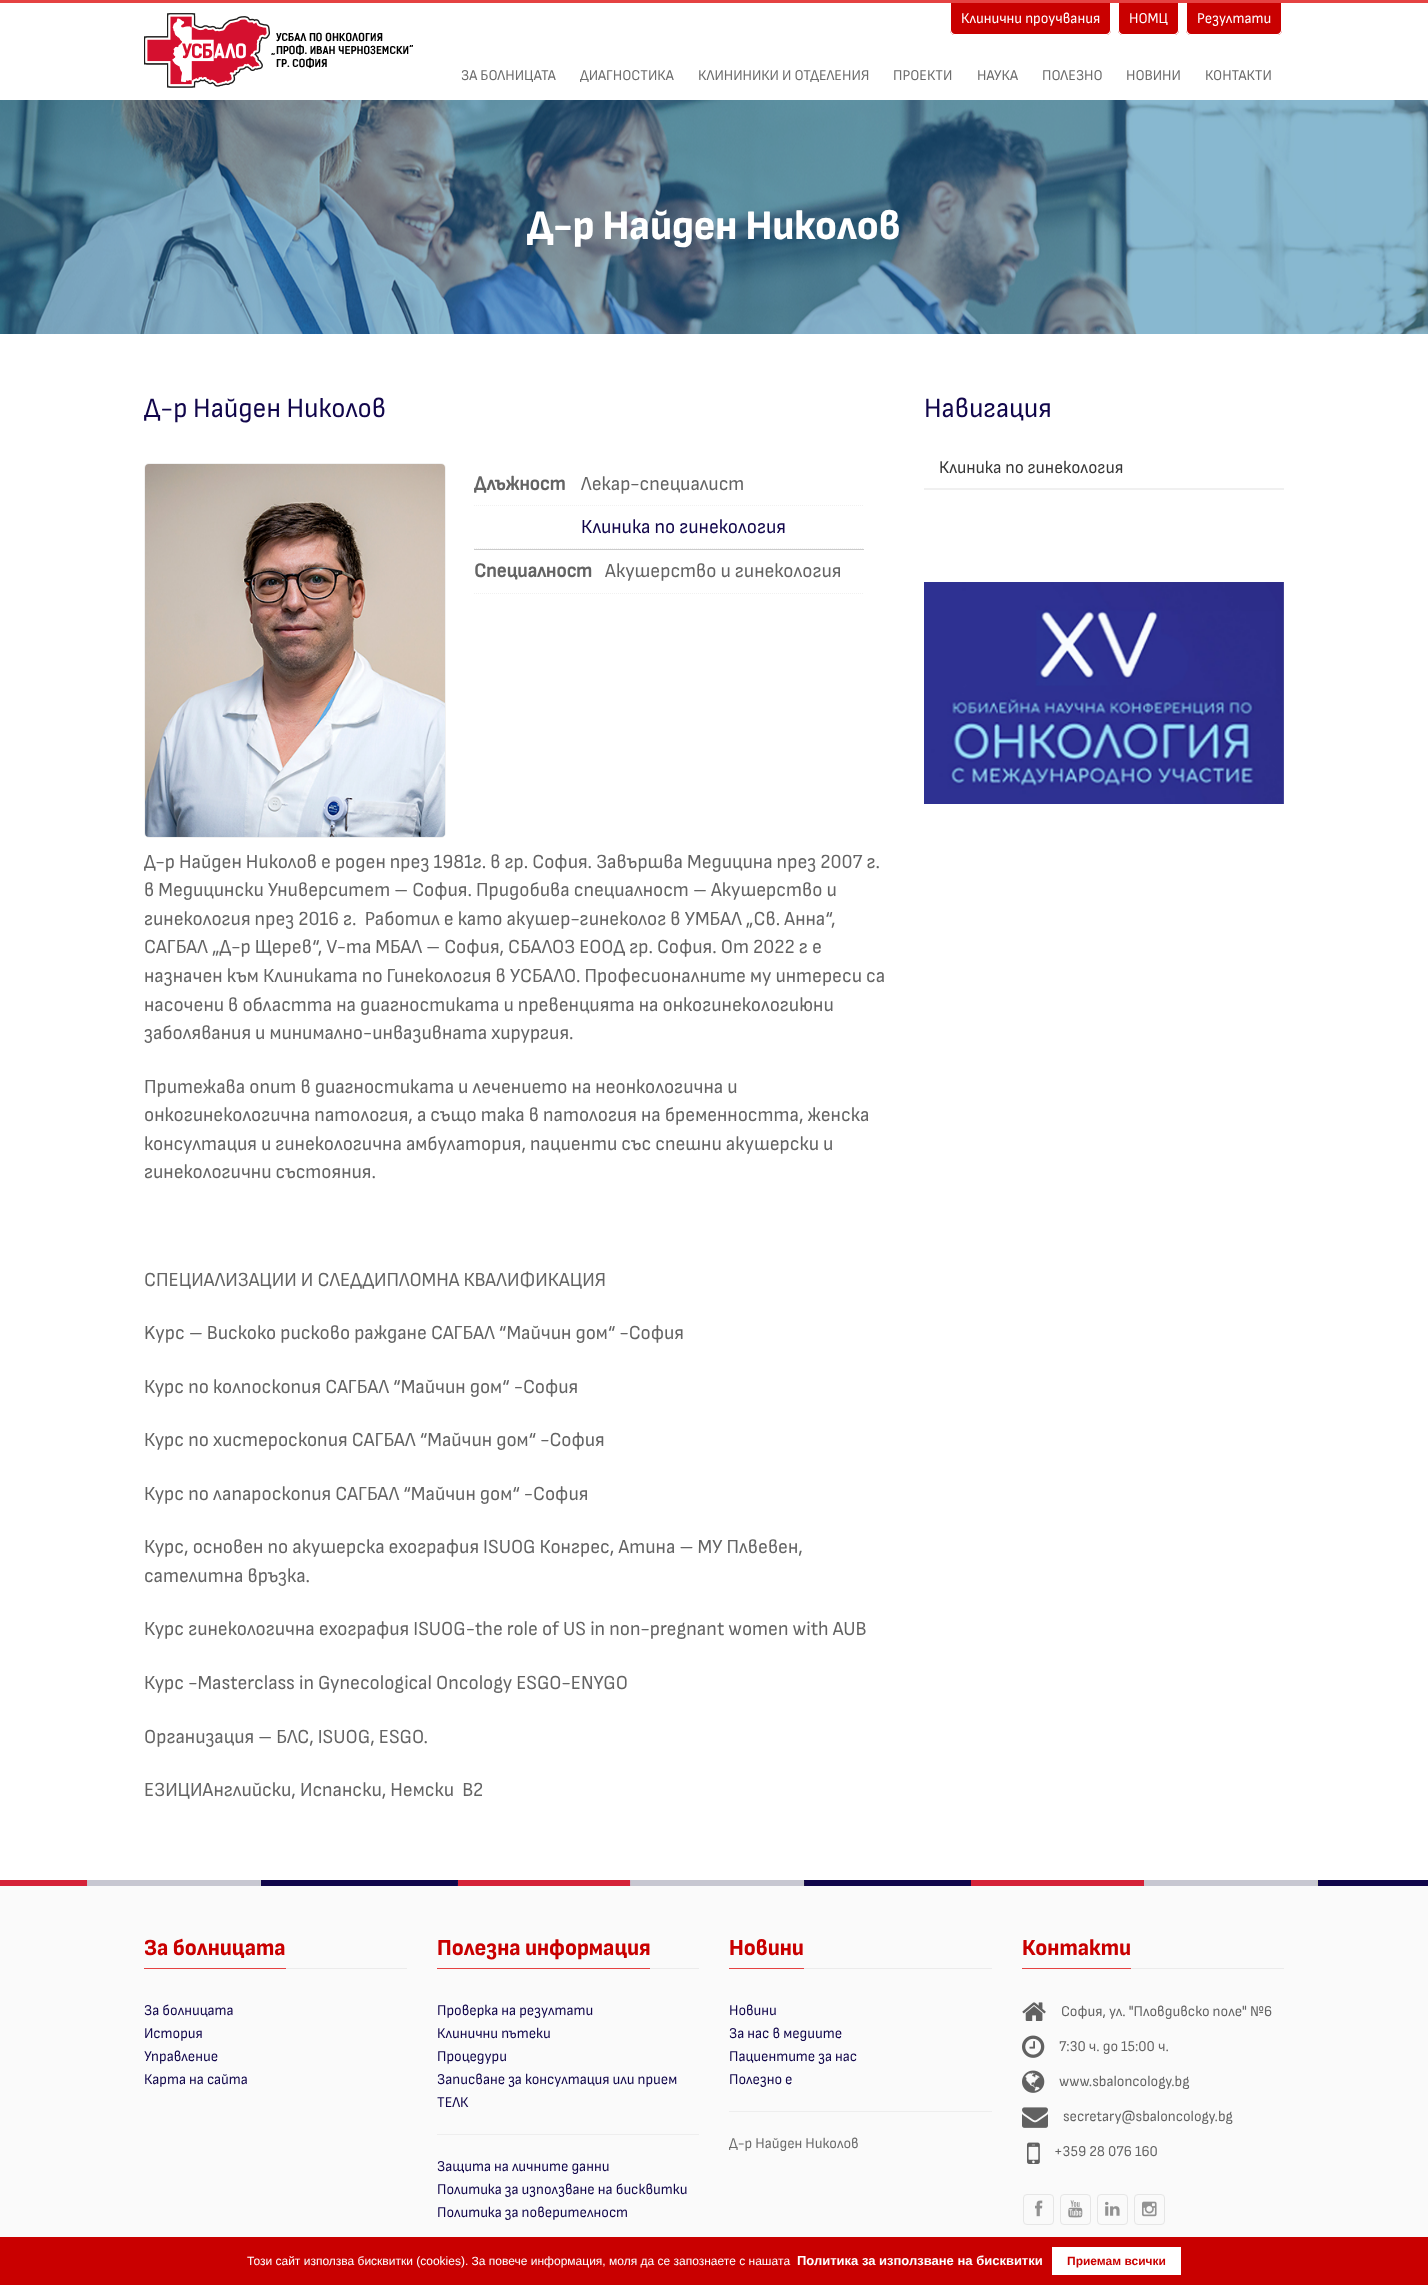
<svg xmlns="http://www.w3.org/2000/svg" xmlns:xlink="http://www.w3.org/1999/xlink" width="1428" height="2285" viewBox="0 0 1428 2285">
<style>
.cls-1{font:15px Sofia Sans Semi Condensed;fill:#ffffff}
.cls-2{font:15px Sofia Sans Semi Condensed;fill:#6c6c6c}
.cls-3{font:800 42px Sofia Sans Semi Condensed;fill:#ffffff}
.cls-4{font:28px Sofia Sans Semi Condensed;fill:#11064b}
.cls-5{font:bold 20px Sofia Sans Semi Condensed;fill:#646464}
.cls-6{font:20px Sofia Sans Semi Condensed;fill:#646464}
.cls-7{font:20px Sofia Sans Semi Condensed;fill:#11064b}
.cls-8{font:18px Sofia Sans Semi Condensed;fill:#373737}
.cls-9{font:800 23px Sofia Sans Semi Condensed;fill:#c90000}
.cls-10{font:15px Sofia Sans Semi Condensed;fill:#11064b}
.cls-11{font:15px Sofia Sans Semi Condensed;fill:#646464}
.cls-12{font:12px Liberation Sans;fill:#ffffff}
.cls-13{font:bold 13px Liberation Sans;fill:#ffffff}
.cls-14{font:bold 12px Liberation Sans;fill:#c90000}
</style>
<rect width="100%" height="100%" fill="#ffffff"/>
<path fill="#c90000" d="M950 3H1111V30C1111 33 1109 35 1106 35H955C952 35 950 33 950 30Z"/>
<path fill="#ffffff" fill-rule="evenodd" d="M950 3H1111V30C1111 33 1109 35 1106 35H955C952 35 950 33 950 30ZM951 3H1110V30C1110 32 1108 34 1106 34H955C953 34 951 32 951 30Z"/>
<path fill="#c90000" d="M1118 3H1179V30C1179 33 1177 35 1174 35H1123C1120 35 1118 33 1118 30Z"/>
<path fill="#ffffff" fill-rule="evenodd" d="M1118 3H1179V30C1179 33 1177 35 1174 35H1123C1120 35 1118 33 1118 30ZM1119 3H1178V30C1178 32 1176 34 1174 34H1123C1121 34 1119 32 1119 30Z"/>
<path fill="#c90000" d="M1186 3H1282V30C1282 33 1280 35 1277 35H1191C1188 35 1186 33 1186 30Z"/>
<path fill="#ffffff" fill-rule="evenodd" d="M1186 3H1282V30C1282 33 1280 35 1277 35H1191C1188 35 1186 33 1186 30ZM1187 3H1281V30C1281 32 1279 34 1277 34H1191C1189 34 1187 32 1187 30Z"/>
<rect fill="#e54242" x="0" y="0" width="1428" height="3"/>
<image xlink:href="image0.png" x="144" y="13" width="269" height="75"/>
<image xlink:href="image1.png" x="0" y="100" width="1428" height="234"/>
<rect fill="none" stroke="#f2f2f2" x="144.5" y="463.5" width="301" height="374" rx="4.5"/>
<image xlink:href="image2.png" x="145" y="464" width="300" height="373"/>
<path fill="none" stroke="#f1f1f1" stroke-dasharray="1 1" d="M474 505.5H864"/>
<path fill="none" stroke="#f1f1f1" stroke-dasharray="1 1" d="M474 548.5H864"/>
<rect fill="#cccccc" x="474" y="549" width="390" height="1"/>
<path fill="none" stroke="#f1f1f1" stroke-dasharray="1 1" d="M474 593.5H864"/>
<rect fill="#f0f0f0" x="924" y="488" width="360" height="2"/>
<image xlink:href="image3.png" x="924" y="582" width="360" height="222"/>
<image xlink:href="image4.png" x="0" y="1880" width="1428" height="3"/>
<image xlink:href="image4.png" x="0" y="1883" width="1428" height="3"/>
<rect fill="#fafafa" x="0" y="1886" width="1428" height="351"/>
<rect fill="#ebebeb" x="286" y="1968" width="121" height="1"/>
<rect fill="#e54242" x="144" y="1968" width="142" height="1"/>
<rect fill="#ebebeb" x="650" y="1968" width="49" height="1"/>
<rect fill="#e54242" x="437" y="1968" width="213" height="1"/>
<rect fill="#eeeeee" x="437" y="2134" width="262" height="1"/>
<rect fill="#ebebeb" x="804" y="1968" width="188" height="1"/>
<rect fill="#e54242" x="729" y="1968" width="75" height="1"/>
<rect fill="#eeeeee" x="729" y="2111" width="263" height="1"/>
<rect fill="#ebebeb" x="1131" y="1968" width="153" height="1"/>
<rect fill="#e54242" x="1022" y="1968" width="109" height="1"/>
<image xlink:href="image5.png" x="1022" y="2002" width="24" height="19"/>
<image xlink:href="image6.png" x="1022" y="2035" width="23" height="23"/>
<image xlink:href="image7.png" x="1022" y="2070" width="23" height="23"/>
<image xlink:href="image8.png" x="1022" y="2107" width="26" height="21"/>
<image xlink:href="image9.png" x="1027" y="2142" width="13" height="22"/>
<rect fill="none" stroke="#e6e6e6" x="1023.5" y="2194.5" width="30" height="30" rx="3.5"/>
<image xlink:href="image10.png" x="1035" y="2200" width="8" height="17"/>
<rect fill="none" stroke="#e6e6e6" x="1060.5" y="2194.5" width="30" height="30" rx="3.5"/>
<image xlink:href="image11.png" x="1068" y="2200" width="15" height="18"/>
<rect fill="none" stroke="#e6e6e6" x="1097.5" y="2194.5" width="30" height="30" rx="3.5"/>
<image xlink:href="image12.png" x="1105" y="2201" width="15" height="15"/>
<rect fill="none" stroke="#e6e6e6" x="1134.5" y="2194.5" width="30" height="30" rx="3.5"/>
<image xlink:href="image13.png" x="1142" y="2201" width="15" height="16"/>
<rect fill="#c90000" x="0" y="2237" width="1428" height="48"/>
<rect fill="#ffffff" x="1052" y="2247" width="129" height="28"/>
<text class="cls-1" x="961" y="23">Клинични проучвания</text>
<text class="cls-1" x="1129" y="23">НОМЦ</text>
<text class="cls-1" x="1197" y="23">Резултати</text>
<text class="cls-2" x="461" y="80">ЗА БОЛНИЦАТА</text>
<text class="cls-2" x="580" y="80">ДИАГНОСТИКА</text>
<text class="cls-2" x="698" y="80">КЛИНИНИКИ И ОТДЕЛЕНИЯ</text>
<text class="cls-2" x="893" y="80">ПРОЕКТИ</text>
<text class="cls-2" x="977" y="80">НАУКА</text>
<text class="cls-2" x="1042" y="80">ПОЛЕЗНО</text>
<text class="cls-2" x="1126" y="80">НОВИНИ</text>
<text class="cls-2" x="1205" y="80">КОНТАКТИ</text>
<text class="cls-3" x="527" y="239">Д-р Найден Николов</text>
<text class="cls-4" x="144" y="417">Д-р Найден Николов</text>
<text class="cls-5" x="474" y="490">Длъжност</text>
<text class="cls-6" x="581" y="490">Лекар-специалист</text>
<text class="cls-7" x="581" y="533">Клиника по гинекология</text>
<text class="cls-5" x="474" y="577">Специалност</text>
<text class="cls-6" x="605" y="577">Акушерство и гинекология</text>
<text class="cls-6" xml:space="preserve"><tspan x="144" y="868">Д-р Найден Николов е роден през 1981г. в гр. София. Завършва Медицина през 2007 г.</tspan><tspan x="144" y="896">в Медицински Университет – София. Придобива специалност – Акушерство и</tspan><tspan x="144" y="925">гинекология през 2016 г.  Работил е като акушер-гинеколог в УМБАЛ „Св. Анна“,</tspan><tspan x="144" y="953">САГБАЛ „Д-р Щерев“, V-та МБАЛ – София, СБАЛОЗ ЕООД гр. София. От 2022 г е</tspan><tspan x="144" y="982">назначен към Клиниката по Гинекология в УСБАЛО. Професионалните му интереси са</tspan><tspan x="144" y="1011">насочени в областта на диагностиката и превенцията на онкогинекологиюни</tspan><tspan x="144" y="1039">заболявания и минимално-инвазивната хирургия.</tspan></text>
<text class="cls-6"><tspan x="144" y="1093">Притежава опит в диагностиката и лечението на неонкологична и</tspan><tspan x="144" y="1121">онкогинекологична патология, а също така в патология на бременността, женска</tspan><tspan x="144" y="1150">консултация и гинекологична амбулатория, пациенти със спешни акушерски и</tspan><tspan x="144" y="1178">гинекологични състояния.</tspan></text>
<text class="cls-6" x="144" y="1286">СПЕЦИАЛИЗАЦИИ И СЛЕДДИПЛОМНА КВАЛИФИКАЦИЯ</text>
<text class="cls-6" x="144" y="1339">Kурс – Вискоко рисково раждане САГБАЛ “Майчин дом“ -София</text>
<text class="cls-6" x="144" y="1393">Курс по колпоскопия САГБАЛ “Майчин дом“ -София</text>
<text class="cls-6" x="144" y="1446">Курс по хистероскопия САГБАЛ “Майчин дом“ -София</text>
<text class="cls-6" x="144" y="1500">Курс по лапароскопия САГБАЛ “Майчин дом“ -София</text>
<text class="cls-6"><tspan x="144" y="1553">Курс, основен по акушерска ехография ISUOG Конгрес, Атина – MУ Плвевен,</tspan><tspan x="144" y="1582">сателитна връзка.</tspan></text>
<text class="cls-6" x="144" y="1635">Курс гинекологична ехография ISUOG-the role of US in non-pregnant women with AUB</text>
<text class="cls-6" x="144" y="1689">Курс -Masterclass in Gynecological Oncology ESGO-ENYGO</text>
<text class="cls-6" x="144" y="1743">Организация – БЛС, ISUOG, ESGO.</text>
<text class="cls-6" xml:space="preserve" x="144" y="1796">ЕЗИЦИАнглийски, Испански, Немски  B2</text>
<text class="cls-4" x="924" y="417">Навигация</text>
<text class="cls-8" x="939" y="473">Клиника по гинекология</text>
<text class="cls-9" x="144" y="1955">За болницата</text>
<text class="cls-10"><tspan x="144" y="2015">За болницата</tspan><tspan x="144" y="2038">История</tspan><tspan x="144" y="2061">Управление</tspan><tspan x="144" y="2084">Карта на сайта</tspan></text>
<text class="cls-9" x="437" y="1955">Полезна информация</text>
<text class="cls-10"><tspan x="437" y="2015">Проверка на резултати</tspan><tspan x="437" y="2038">Клинични пътеки</tspan><tspan x="437" y="2061">Процедури</tspan><tspan x="437" y="2084">Записване за консултация или прием</tspan><tspan x="437" y="2107">ТЕЛК</tspan></text>
<text class="cls-10"><tspan x="437" y="2171">Защита на личните данни</tspan><tspan x="437" y="2194">Политика за използване на бисквитки</tspan><tspan x="437" y="2217">Политика за поверителност</tspan></text>
<text class="cls-9" x="729" y="1955">Новини</text>
<text class="cls-10"><tspan x="729" y="2015">Новини</tspan><tspan x="729" y="2038">За нас в медиите</tspan><tspan x="729" y="2061">Пациентите за нас</tspan><tspan x="729" y="2084">Полезно е</tspan></text>
<text class="cls-2" x="729" y="2148">Д-р Найден Николов</text>
<text class="cls-9" x="1022" y="1955">Контакти</text>
<text class="cls-11" x="1061" y="2016">София, ул. "Пловдивско поле" №6</text>
<text class="cls-11" x="1059" y="2051">7:30 ч. до 15:00 ч.</text>
<text class="cls-11" x="1059" y="2086">www.sbaloncology.bg</text>
<text class="cls-11" x="1063" y="2121">secretary@sbaloncology.bg</text>
<text class="cls-11" x="1054" y="2156">+359 28 076 160</text>
<text class="cls-12" x="247" y="2265">Този сайт използва бисквитки (cookies). За повече информация, моля да се запознаете с нашaтa</text>
<text class="cls-13" x="797" y="2265">Политика за използване на бисквитки</text>
<text class="cls-14" x="1067" y="2265">Приемам всички</text>
</svg>
